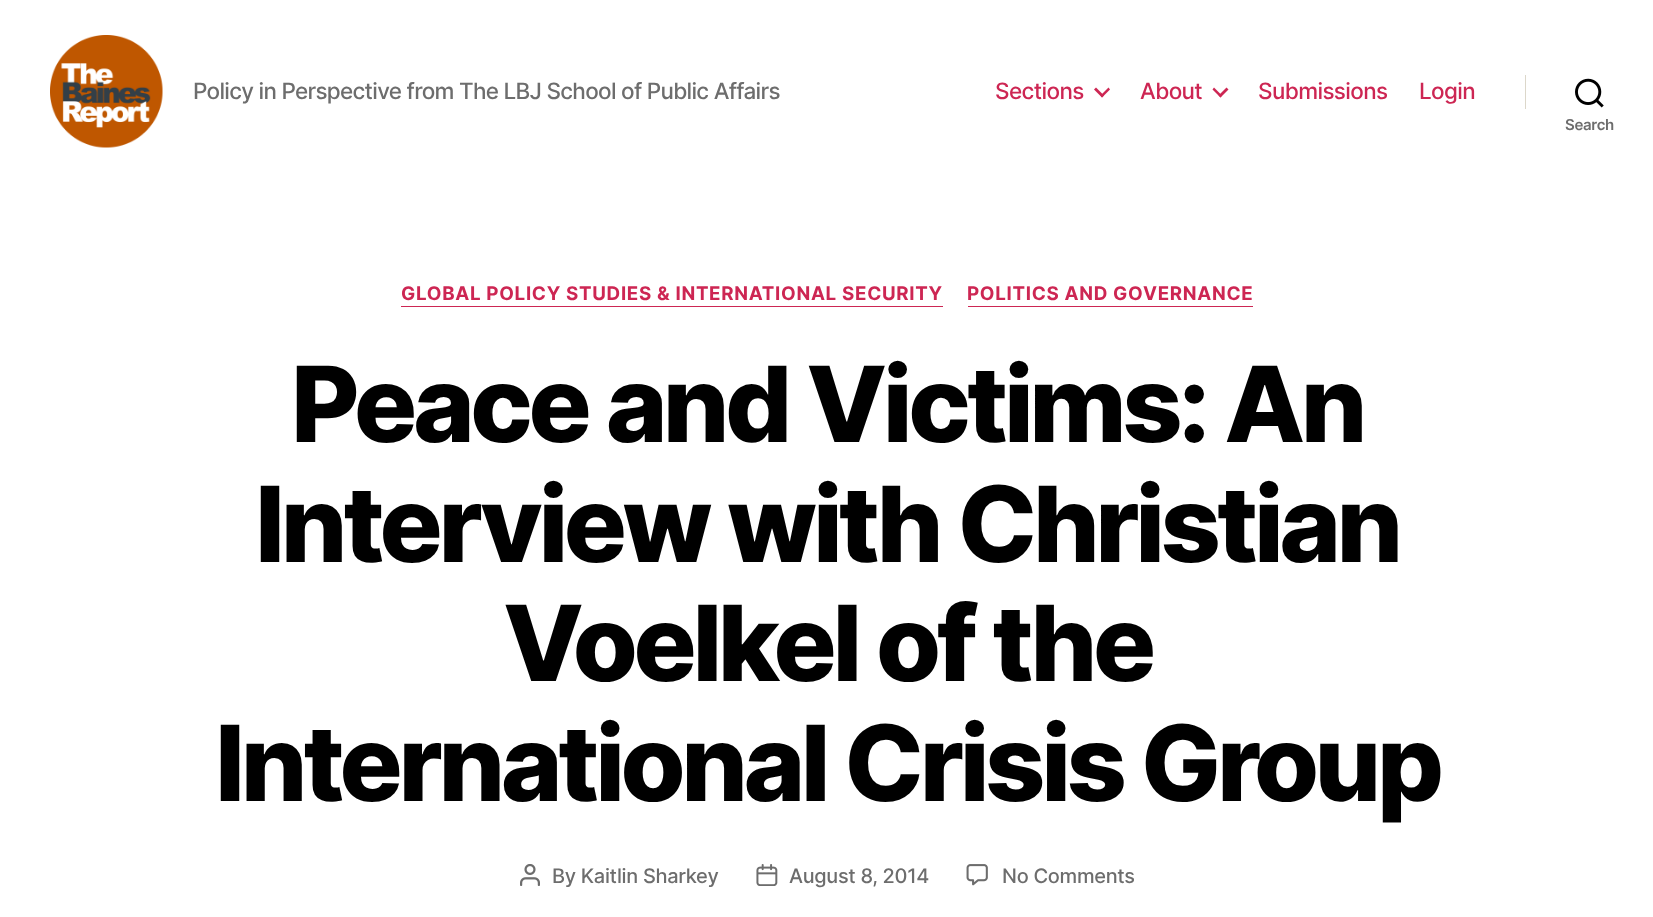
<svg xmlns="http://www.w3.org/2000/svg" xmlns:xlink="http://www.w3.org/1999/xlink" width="1653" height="917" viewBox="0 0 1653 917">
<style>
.cls-1{font:500 22.5px Inter;letter-spacing:-0.7px;fill:#6d6d6d}
.cls-2{font:500 22.5px Inter;letter-spacing:-0.6px;fill:#cd2653}
.cls-3{font:600 15px Inter;letter-spacing:-0.3px;fill:#6d6d6d}
.cls-4{font:bold 18.75px Inter;letter-spacing:0.7px;fill:#cd2653}
.cls-5{font:800 105px Inter;letter-spacing:-4.35px;fill:#000000}
.cls-6{font:500 20px Inter;letter-spacing:-0.3px;fill:#6d6d6d}
</style>
<rect width="100%" height="100%" fill="#ffffff"/>
<image xlink:href="image0.png" x="50" y="35" width="113" height="113"/>
<path fill="#cd2653" d="M1094 89.5L1096 87.5L1104 95.5L1102 97.5Z"/>
<path fill="#cd2653" d="M1100.5 95.5L1108.5 87.5L1110 89.5L1102 97.5Z"/>
<path fill="#cd2653" d="M1212.5 89.5L1214 87.5L1222 95.5L1220.5 97.5Z"/>
<path fill="#cd2653" d="M1218.5 95.5L1226.5 87.5L1228.5 89.5L1220.5 97.5Z"/>
<rect fill="#dcd7ca" x="1525" y="75" width="1" height="34"/>
<image xlink:href="image1.png" x="1575" y="78" width="29" height="30"/>
<rect fill="#cd2653" x="401" y="306" width="542" height="1"/>
<rect fill="#cd2653" x="968" y="306" width="285" height="1"/>
<image xlink:href="image2.png" x="520" y="864" width="20" height="22"/>
<image xlink:href="image3.png" x="756" y="864" width="22" height="22"/>
<image xlink:href="image4.png" x="966" y="864" width="22" height="22"/>
<text class="cls-1" x="193" y="99">Policy in Perspective from The LBJ School of Public Affairs</text>
<text class="cls-2" x="995" y="99">Sections</text>
<text class="cls-2" x="1140" y="99">About</text>
<text class="cls-2" x="1258" y="99">Submissions</text>
<text class="cls-2" x="1419" y="99">Login</text>
<text class="cls-3" x="1565" y="130">Search</text>
<text class="cls-4" x="401" y="300">GLOBAL POLICY STUDIES &amp; INTERNATIONAL SECURITY</text>
<text class="cls-4" x="967" y="300">POLITICS AND GOVERNANCE</text>
<text class="cls-5" x="291" y="442">Peace and Victims: An</text>
<text class="cls-5" x="255" y="562">Interview with Christian</text>
<text class="cls-5" x="503" y="681">Voelkel of the</text>
<text class="cls-5" x="215" y="801">International Crisis Group</text>
<text class="cls-6" x="552" y="883">By Kaitlin Sharkey</text>
<text class="cls-6" x="789" y="883">August 8, 2014</text>
<text class="cls-6" x="1002" y="883">No Comments</text>
</svg>
